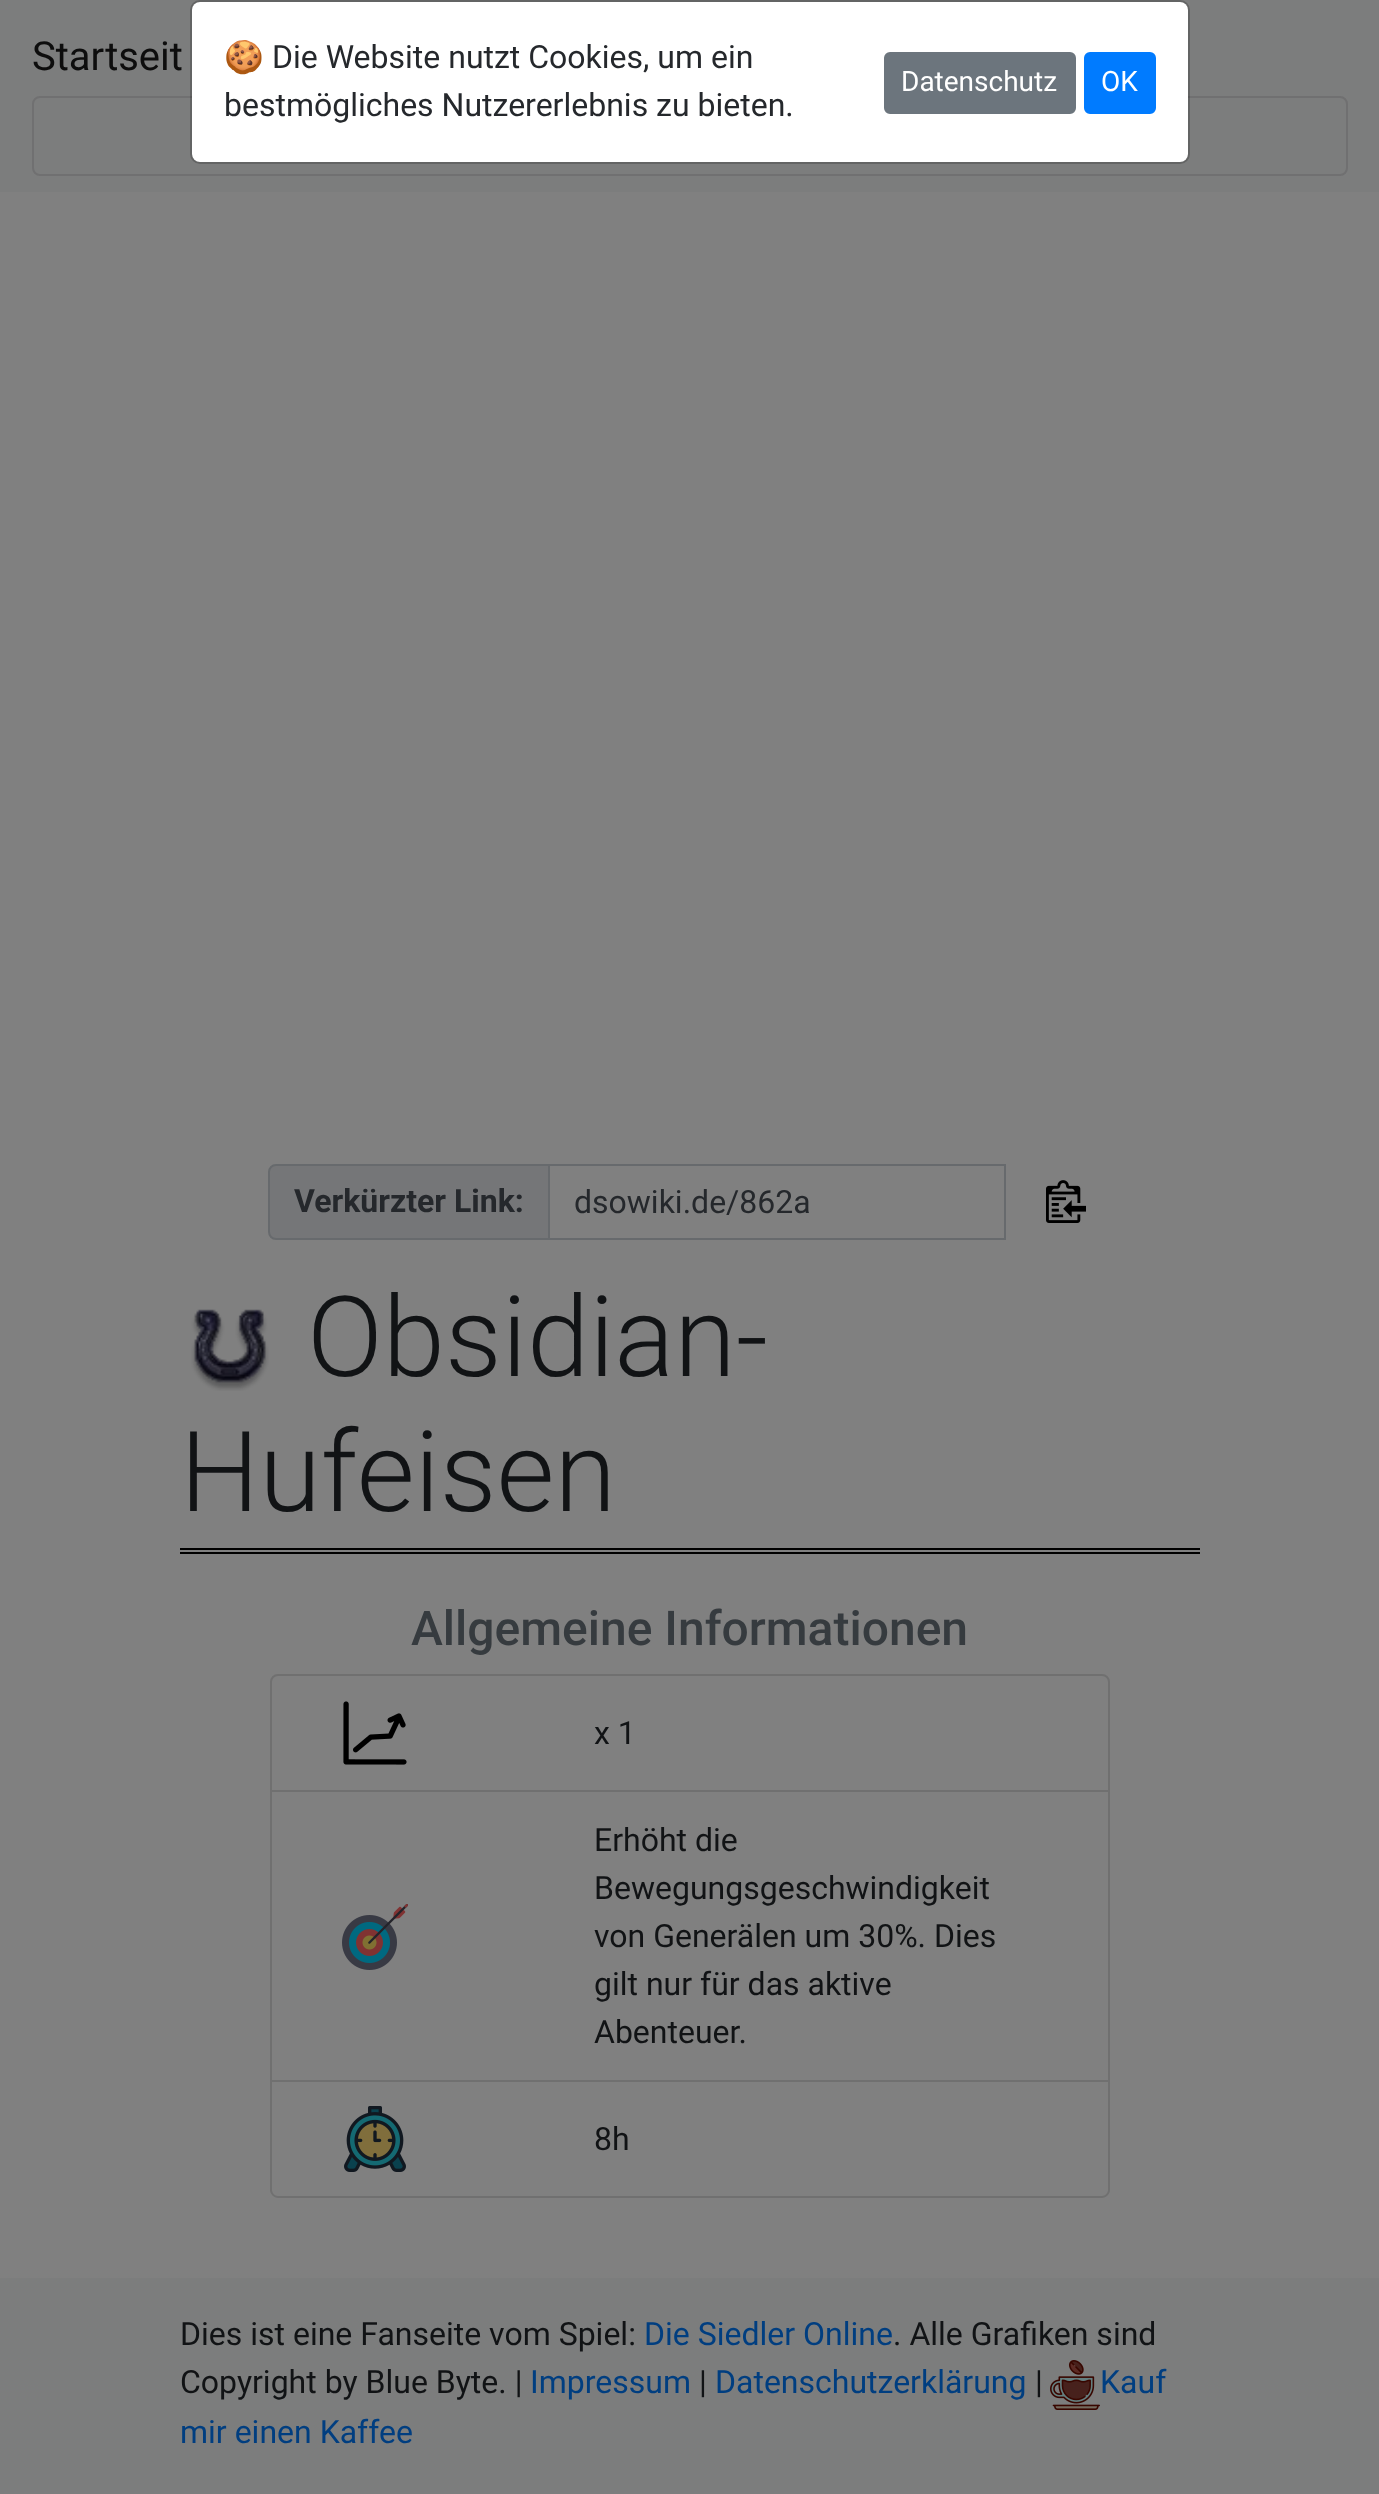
<svg xmlns="http://www.w3.org/2000/svg" xmlns:xlink="http://www.w3.org/1999/xlink" width="1379" height="2494" viewBox="0 0 1379 2494">
<style>
.cls-1{font:40px Roboto;fill:#0d0d0d}
.cls-2{font:32px Noto Color Emoji;fill:#25282c}
.cls-3{font:32px Roboto;fill:#25282c}
.cls-4{font:28px Roboto;fill:#ffffff}
.cls-5{font:bold 32px Roboto;fill:#25282c}
.cls-6{font:300 112px Roboto;fill:#111315}
.cls-7{font:500 48px Roboto;fill:#363b3f}
.cls-8{font:32px Roboto;fill:#111315}
.cls-9{font:32px Roboto;fill:#003e80}
</style>
<rect width="100%" height="100%" fill="#808080"/>
<rect fill="#7c7d7d" x="0" y="0" width="1379" height="192"/>
<rect fill="none" stroke="#707071" stroke-width="2" x="33" y="97" width="1314" height="78" rx="7"/>
<rect fill="#ffffff" x="192" y="2" width="996" height="160" rx="8"/>
<rect fill="none" stroke="#000000" stroke-opacity="0.2" stroke-width="2" x="191" y="1" width="998" height="162" rx="9"/>
<rect fill="#6c757d" stroke="#6c757d" stroke-width="2" x="885" y="53" width="190" height="60" rx="5"/>
<rect fill="#007bff" stroke="#007bff" stroke-width="2" x="1085" y="53" width="70" height="60" rx="5"/>
<path fill="#757678" stroke="#676a6d" stroke-width="2" d="M276 1165H549V1239H276C272 1239 269 1236 269 1232V1172C269 1168 272 1165 276 1165Z"/>
<rect fill="none" stroke="#676a6d" stroke-width="2" x="549" y="1165" width="456" height="74"/>
<image xlink:href="image0.png" x="1046" y="1180" width="40" height="43"/>
<rect fill="#000000" x="180" y="1548" width="1020" height="2"/>
<rect fill="#000000" x="180" y="1552" width="1020" height="2"/>
<image xlink:href="image1.png" x="191" y="1309" width="78" height="82"/>
<path fill="none" stroke="#707070" stroke-width="2" d="M278 1675H1102C1106 1675 1109 1678 1109 1682V1791H271V1682C271 1678 274 1675 278 1675Z"/>
<image xlink:href="image2.png" x="343" y="1701" width="64" height="64"/>
<path fill="#707070" d="M1110 1792V2082L1108 2080V1792Z"/>
<path fill="#000000" fill-opacity="0.12" d="M1110 2082H270L272 2080H1108Z"/>
<path fill="#000000" fill-opacity="0.12" d="M270 2082V1792H272V2080Z"/>
<image xlink:href="image3.png" x="342" y="1904" width="66" height="66"/>
<path fill="#707070" fill-rule="evenodd" d="M270 2082H1110V2190C1110 2194 1106 2198 1102 2198H278C274 2198 270 2194 270 2190ZM272 2082H1108V2190C1108 2193 1105 2196 1102 2196H278C275 2196 272 2193 272 2190Z"/>
<image xlink:href="image4.png" x="344" y="2106" width="62" height="66"/>
<rect fill="#7c7d7d" x="0" y="2278" width="1379" height="216"/>
<image xlink:href="image5.png" x="1050" y="2360" width="50" height="50"/>
<text class="cls-1" x="32" y="70">Startseit</text>
<text class="cls-2" x="224" y="68">🍪</text>
<text class="cls-3" x="272" y="68">Die Website nutzt Cookies, um ein</text>
<text class="cls-3" x="224" y="116">bestmögliches Nutzererlebnis zu bieten.</text>
<text class="cls-4" x="901" y="91">Datenschutz</text>
<text class="cls-4" x="1101" y="91">OK</text>
<text class="cls-5" x="294" y="1212">Verkürzter Link:</text>
<text class="cls-3" x="574" y="1213">dsowiki.de/862a</text>
<text class="cls-6" x="307" y="1376">Obsidian-</text>
<text class="cls-6" x="180" y="1511">Hufeisen</text>
<text class="cls-7" x="411" y="1645">Allgemeine Informationen</text>
<text class="cls-8" x="594" y="1744">x 1</text>
<text class="cls-8"><tspan x="594" y="1851">Erhöht die</tspan><tspan x="594" y="1899">Bewegungsgeschwindigkeit</tspan><tspan x="594" y="1947">von Generälen um 30%. Dies</tspan><tspan x="594" y="1995">gilt nur für das aktive</tspan><tspan x="594" y="2043">Abenteuer.</tspan></text>
<text class="cls-8" x="594" y="2150">8h</text>
<text class="cls-8" x="180" y="2345">Dies ist eine Fanseite vom Spiel:</text>
<text class="cls-9" x="644" y="2345">Die Siedler Online</text>
<text class="cls-8" x="893" y="2345">. Alle Grafiken sind</text>
<text class="cls-8" x="180" y="2393">Copyright by Blue Byte. |</text>
<text class="cls-9" x="530" y="2393">Impressum</text>
<text class="cls-8" x="699" y="2393">|</text>
<text class="cls-9" x="715" y="2393">Datenschutzerklärung</text>
<text class="cls-8" x="1035" y="2393">|</text>
<text class="cls-9" x="1100" y="2393">Kauf</text>
<text class="cls-9" x="180" y="2443">mir einen Kaffee</text>
</svg>
